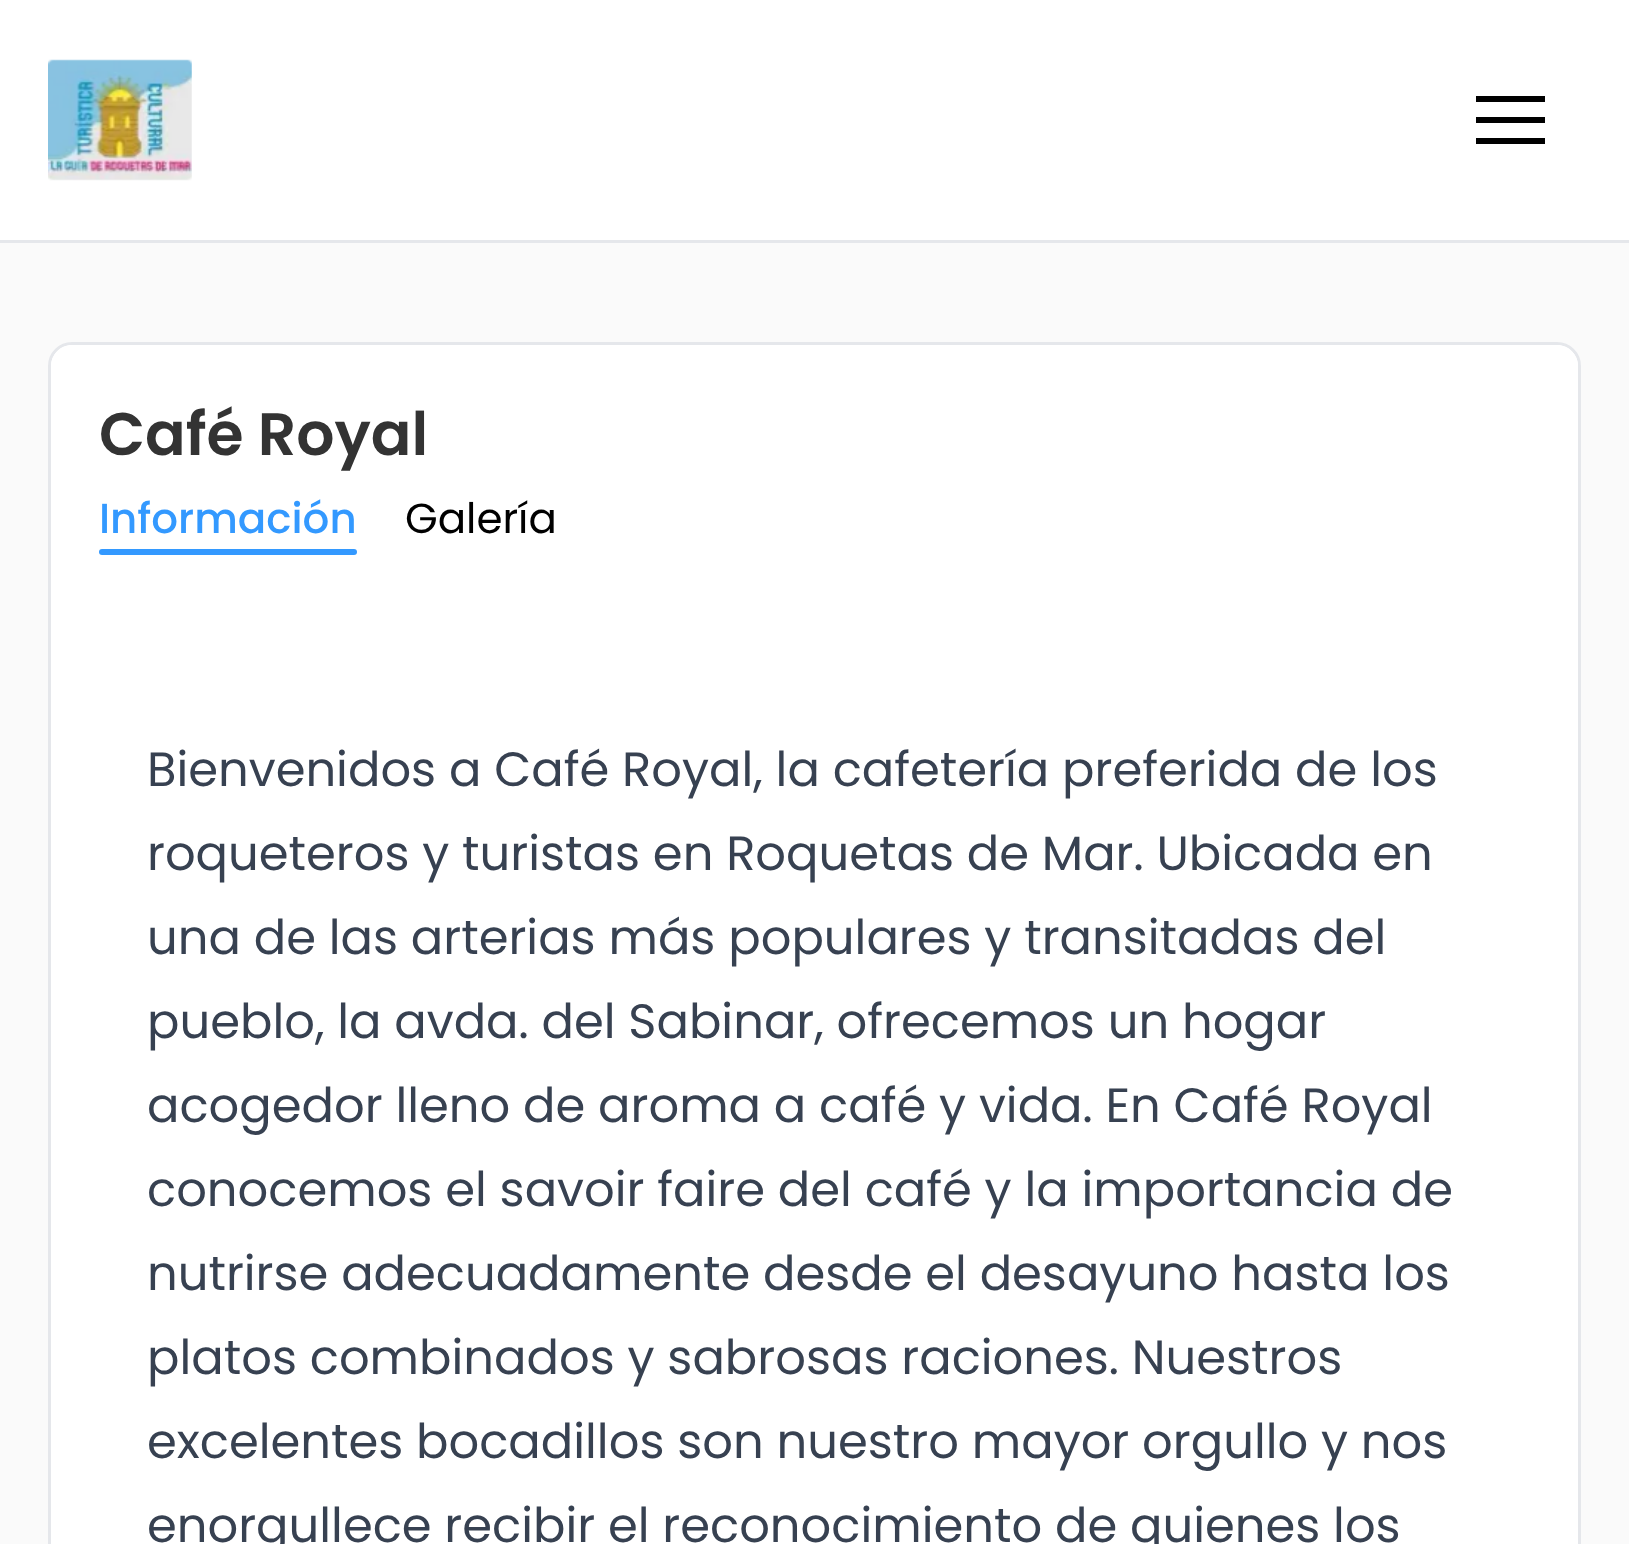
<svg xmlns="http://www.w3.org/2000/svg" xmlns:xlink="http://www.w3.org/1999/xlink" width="1629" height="1544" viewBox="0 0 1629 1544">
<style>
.cls-1{font:600 60px Poppins;fill:#333333}
.cls-2{font:500 42px Poppins;fill:#3399ff}
.cls-3{font:42px Poppins;fill:#000000}
.cls-4{font:48px Poppins;fill:#374151}
</style>
<rect width="100%" height="100%" fill="#ffffff"/>
<rect fill="#e5e7eb" x="0" y="240" width="1629" height="3"/>
<image xlink:href="image0.png" x="48" y="59" width="144" height="122"/>
<rect fill="#000000" x="1476" y="96" width="69" height="6"/>
<rect fill="#000000" x="1476" y="117" width="69" height="6"/>
<rect fill="#000000" x="1476" y="138" width="69" height="6"/>
<rect fill="#fafafa" x="0" y="243" width="1629" height="1301"/>
<rect fill="#ffffff" stroke="#e5e7eb" stroke-width="3" x="49.5" y="343.5" width="1530" height="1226" rx="22.5"/>
<path fill="#ffffff" d="M72 345H1557C1568.5 345 1578 354.5 1578 366V579H51V366C51 354.5 60.5 345 72 345Z"/>
<rect fill="#3399ff" x="99" y="549" width="258" height="6" rx="3"/>
<text class="cls-1" x="99" y="455">Café Royal</text>
<text class="cls-2" x="99" y="533">Información</text>
<text class="cls-3" x="405" y="533">Galería</text>
<text class="cls-4"><tspan x="147" y="786">Bienvenidos a Café Royal, la cafetería preferida de los</tspan><tspan x="147" y="870">roqueteros y turistas en Roquetas de Mar. Ubicada en</tspan><tspan x="147" y="954">una de las arterias más populares y transitadas del</tspan><tspan x="147" y="1038">pueblo, la avda. del Sabinar, ofrecemos un hogar</tspan><tspan x="147" y="1122">acogedor lleno de aroma a café y vida. En Café Royal</tspan><tspan x="147" y="1206">conocemos el savoir faire del café y la importancia de</tspan><tspan x="147" y="1290">nutrirse adecuadamente desde el desayuno hasta los</tspan><tspan x="147" y="1374">platos combinados y sabrosas raciones. Nuestros</tspan><tspan x="147" y="1458">excelentes bocadillos son nuestro mayor orgullo y nos</tspan><tspan x="147" y="1542">enorgullece recibir el reconocimiento de quienes los</tspan></text>
</svg>
